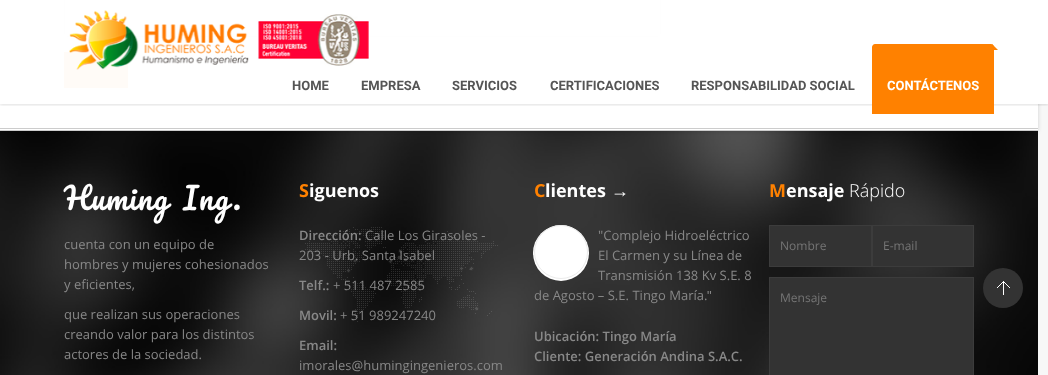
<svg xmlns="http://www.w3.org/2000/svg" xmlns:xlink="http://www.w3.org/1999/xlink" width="1048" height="375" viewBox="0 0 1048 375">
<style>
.cls-1{font:bold 13px Roboto;fill:#555555}
.cls-2{font:bold 13px Roboto;fill:#ffffff}
.cls-3{font:30px Pacifico;letter-spacing:1px;fill:#ffffff}
.cls-4{font:13px Open Sans;fill:#888888}
.cls-5{font:bold 18px Open Sans;fill:#ff8100}
.cls-6{font:bold 18px Open Sans;fill:#ffffff}
.cls-7{font:600 13px Open Sans;fill:#888888}
.cls-8{font:18px Liberation Sans;fill:#ffffff}
.cls-9{font:13px Liberation Sans;fill:#888888}
.cls-10{font:300 18px Open Sans;fill:#ffffff}
.cls-11{font:12px Open Sans;fill:#757575}
</style>
<defs>
<clipPath id="clip1"><rect x="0" y="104" width="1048" height="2"/></clipPath>
</defs>
<rect width="100%" height="100%" fill="#f7f7f7"/>
<image xlink:href="image1.png" x="0" y="131" width="1038" height="244"/>
<rect fill="#000000" fill-opacity="0.15" filter="blur(2px)" x="0" y="-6" width="1038" height="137"/>
<rect fill="#ffffff" x="0" y="0" width="1038" height="130"/>
<rect fill="#cccccc" x="0" y="128" width="1038" height="1"/>
<rect fill="#cccccc" x="0" y="130" width="1038" height="1"/>
<rect fill="none" stroke="#e1e1e1" x="64.5" y="-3.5" width="596" height="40" rx="2.5"/>
<rect fill="#ff8100" x="64" y="52" width="64" height="36"/>
<g clip-path="url(#clip1)">
<rect fill="#000000" fill-opacity="0.12" filter="blur(1.5px)" x="0" y="1" width="1048" height="104"/>
</g>
<rect fill="#ffffff" fill-opacity="0.97" x="64" y="0" width="984" height="104"/>
<image xlink:href="image0.png" x="69" y="10" width="301" height="60"/>
<path fill="#ff8100" d="M875 44H991C992.5 44 994 45.5 994 47V114H872V47C872 45.5 873.5 44 875 44Z"/>
<path fill="#ff8100" d="M998 50H992V44Z"/>
<image xlink:href="image2.png" x="305" y="227" width="193" height="95"/>
<rect fill="#ffffff" filter="blur(0.5px)" x="533" y="225" width="56" height="56" rx="28"/>
<circle fill="#ffffff" stroke="#ebebeb" cx="561" cy="252" r="26.5"/>
<rect fill="#333333" stroke="#3c3c3c" x="769.5" y="225.5" width="102" height="41"/>
<rect fill="#333333" stroke="#3c3c3c" x="872.5" y="225.5" width="101" height="41"/>
<rect fill="#333333" stroke="#3c3c3c" x="769.5" y="277.5" width="204" height="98"/>
<circle fill="#333333" cx="1003" cy="288" r="20"/>
<image xlink:href="image3.png" x="997" y="281" width="13" height="14"/>
<text class="cls-1" x="292" y="90">HOME</text>
<text class="cls-1" x="361" y="90">EMPRESA</text>
<text class="cls-1" x="452" y="90">SERVICIOS</text>
<text class="cls-1" x="550" y="90">CERTIFICACIONES</text>
<text class="cls-1" x="691" y="90">RESPONSABILIDAD SOCIAL</text>
<text class="cls-2" x="887" y="90">CONTÁCTENOS</text>
<text class="cls-3" x="64" y="210" word-spacing="5">Huming Ing.</text>
<text class="cls-4"><tspan x="64" y="249">cuenta con un equipo de</tspan><tspan x="64" y="269">hombres y mujeres cohesionados</tspan><tspan x="64" y="289">y eficientes,</tspan></text>
<text class="cls-4"><tspan x="64" y="319">que realizan sus operaciones</tspan><tspan x="64" y="339">creando valor para los distintos</tspan><tspan x="64" y="359">actores de la sociedad.</tspan></text>
<text class="cls-5" x="299" y="197">S</text>
<text class="cls-6" x="309" y="197">iguenos</text>
<text class="cls-7" x="299" y="240">Dirección:</text>
<text class="cls-4" x="365" y="240">Calle Los Girasoles -</text>
<text class="cls-4" x="299" y="260">203 - Urb. Santa Isabel</text>
<text class="cls-7" x="299" y="290">Telf.:</text>
<text class="cls-4" x="333" y="290">+ 511 487 2585</text>
<text class="cls-7" x="299" y="320">Movil:</text>
<text class="cls-4" x="340" y="320">+ 51 989247240</text>
<text class="cls-7" x="299" y="350">Email:</text>
<text class="cls-4" x="299" y="370">imorales@humingingenieros.com</text>
<text class="cls-5" x="534" y="197">C</text>
<text class="cls-6" x="545" y="197">lientes</text>
<text class="cls-8" x="611" y="197">→</text>
<text class="cls-4"><tspan x="598" y="240">"Complejo Hidroeléctrico</tspan><tspan x="598" y="260">El Carmen y su Línea de</tspan><tspan x="598" y="280">Transmisión 138 Kv S.E. 8</tspan></text>
<text class="cls-4" x="534" y="300">de Agosto – S.E. Tingo María.</text>
<text class="cls-9" x="707" y="300">"</text>
<text class="cls-7"><tspan x="534" y="341">Ubicación: Tingo María</tspan><tspan x="534" y="361">Cliente: Generación Andina S.A.C.</tspan></text>
<text class="cls-5" x="769" y="197">M</text>
<text class="cls-6" x="786" y="197">ensaje</text>
<text class="cls-10" x="849" y="197">Rápido</text>
<text class="cls-11" x="780" y="250">Nombre</text>
<text class="cls-11" x="883" y="250">E-mail</text>
<text class="cls-11" x="780" y="302">Mensaje</text>
</svg>
